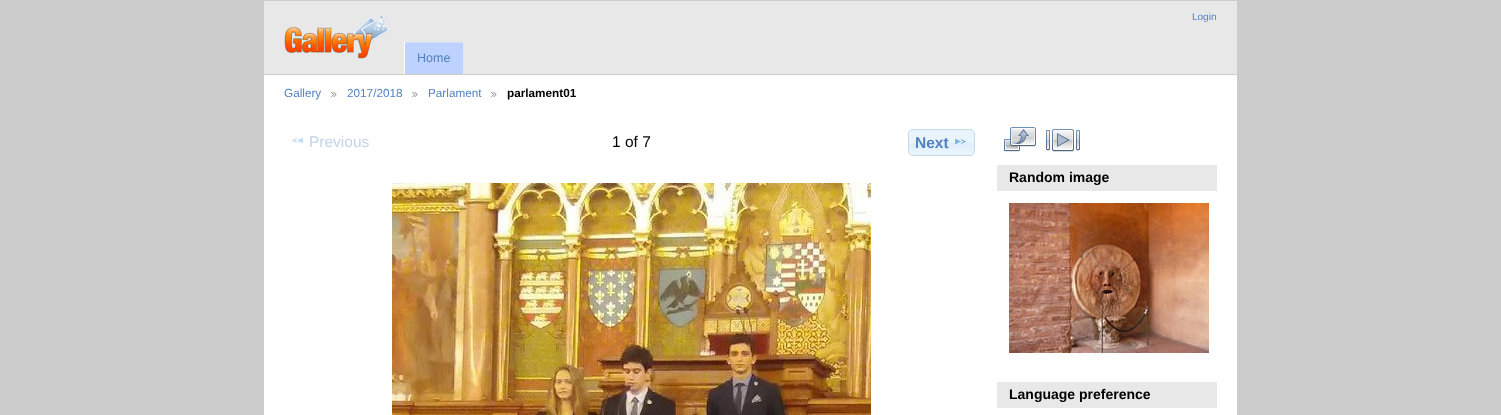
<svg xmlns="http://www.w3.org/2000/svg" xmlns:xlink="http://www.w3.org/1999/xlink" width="1501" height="415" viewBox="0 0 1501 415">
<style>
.cls-1{font:12.5px Liberation Sans;fill:#5382bf}
.cls-2{font:10px Liberation Sans;fill:#5382bf}
.cls-3{font:11.75px Liberation Sans;fill:#5382bf}
.cls-4{font:bold 11.75px Liberation Sans;fill:#000000}
.cls-5{font:15.5px Liberation Sans;fill:#c3d3e9}
.cls-6{font:15.5px Liberation Sans;fill:#000000}
.cls-7{font:bold 15.5px Liberation Sans;fill:#5382bf}
.cls-8{font:bold 14px Liberation Sans;fill:#000000}
</style>
<rect width="100%" height="100%" fill="#cccccc"/>
<rect fill="#ffffff" x="264" y="75" width="973" height="340"/>
<rect fill="#e8e8e8" x="264" y="1" width="973" height="73"/>
<image xlink:href="image0.png" x="284" y="15" width="106" height="44"/>
<rect fill="#bdd2ff" x="405" y="43" width="58" height="31"/>
<rect fill="#cfdeff" x="404" y="42" width="59" height="1"/>
<rect fill="#ffffff" x="404" y="42" width="1" height="32"/>
<image xlink:href="image1.png" x="331" y="92" width="6" height="5"/>
<image xlink:href="image1.png" x="412" y="92" width="6" height="5"/>
<image xlink:href="image1.png" x="491" y="92" width="6" height="5"/>
<image xlink:href="image2.png" x="292" y="138" width="11" height="5"/>
<image xlink:href="image3.png" x="908" y="129" width="67" height="27"/>
<rect fill="none" stroke="#c5dbec" x="908.5" y="129.5" width="66" height="26" rx="4.5"/>
<image xlink:href="image4.png" x="955" y="139" width="11" height="5"/>
<image xlink:href="image5.png" x="392" y="183" width="479" height="232"/>
<image xlink:href="image6.png" x="1004" y="127" width="32" height="25"/>
<image xlink:href="image7.png" x="1046" y="129" width="34" height="23"/>
<rect fill="#e8e8e8" x="997" y="165" width="220" height="26"/>
<image xlink:href="image8.png" x="1009" y="203" width="200" height="150"/>
<rect fill="#e8e8e8" x="997" y="382" width="220" height="26"/>
<text class="cls-1" x="417" y="62">Home</text>
<text class="cls-2" x="1192" y="20">Login</text>
<text class="cls-3" x="284" y="97">Gallery</text>
<text class="cls-3" x="347" y="97">2017/2018</text>
<text class="cls-3" x="428" y="97">Parlament</text>
<text class="cls-4" x="507" y="97">parlament01</text>
<text class="cls-5" x="309" y="147">Previous</text>
<text class="cls-6" x="612" y="147">1 of 7</text>
<text class="cls-7" x="915" y="148">Next</text>
<text class="cls-8" x="1009" y="182">Random image</text>
<text class="cls-8" x="1009" y="399">Language preference</text>
</svg>
